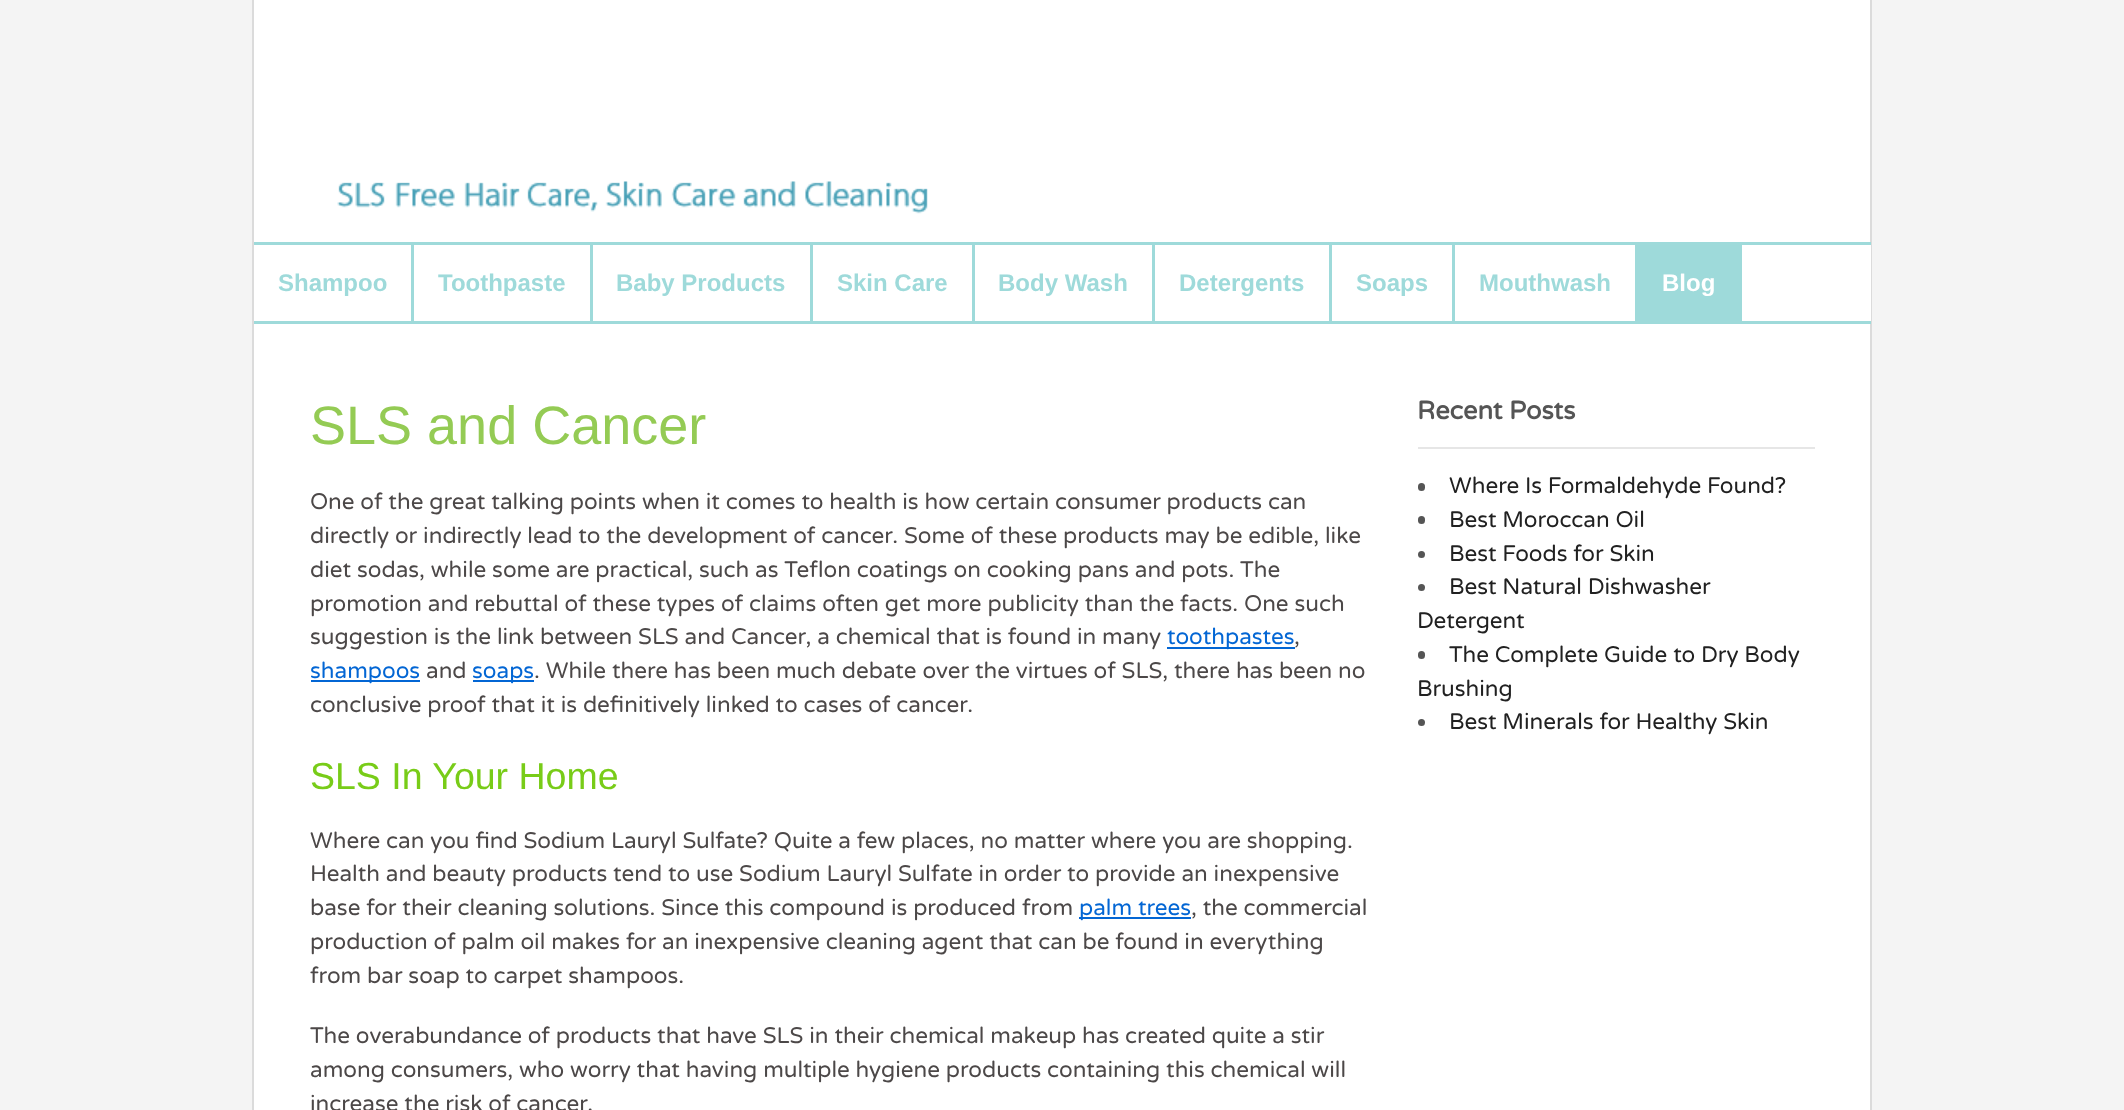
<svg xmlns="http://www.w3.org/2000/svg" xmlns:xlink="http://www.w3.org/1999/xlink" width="2124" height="1110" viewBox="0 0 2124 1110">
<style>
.cls-1{font:bold 24px Liberation Sans;fill:#9edada}
.cls-2{font:bold 24px Liberation Sans;fill:#ffffff}
.cls-3{font:54px Liberation Sans;fill:#94cb54}
.cls-4{font:22.5px Varela Round;fill:#4c4848}
.cls-5{font:22.5px Varela Round;fill:#0366d4}
.cls-6{font:37.5px Liberation Sans;fill:#78cc18}
.cls-7{font:bold 25.5px Varela Round;fill:#555555}
.cls-8{font:22.5px Varela Round;fill:#212121}
</style>
<rect width="100%" height="100%" fill="#f4f4f4"/>
<rect fill="#ffffff" stroke="#dbdbdb" stroke-width="2" x="253" y="-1" width="1618" height="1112"/>
<image xlink:href="image0.png" x="337" y="181" width="591" height="33"/>
<rect fill="#ffffff" x="1870" y="245" width="1" height="76"/>
<rect fill="#9edada" x="254" y="242" width="1617" height="3"/>
<rect fill="#9edada" x="254" y="321" width="1617" height="3"/>
<rect fill="#9edada" x="411" y="245" width="3" height="76"/>
<rect fill="#9edada" x="590" y="245" width="3" height="76"/>
<rect fill="#9edada" x="810" y="245" width="3" height="76"/>
<rect fill="#9edada" x="972" y="245" width="3" height="76"/>
<rect fill="#9edada" x="1152" y="245" width="3" height="76"/>
<rect fill="#9edada" x="1329" y="245" width="3" height="76"/>
<rect fill="#9edada" x="1452" y="245" width="3" height="76"/>
<rect fill="#9edada" x="1635" y="245" width="3" height="76"/>
<rect fill="#9edada" x="1638" y="245" width="104" height="76"/>
<rect fill="#0366d4" x="1167" y="647" width="128" height="2"/>
<rect fill="#0366d4" x="311" y="680" width="109" height="2"/>
<rect fill="#0366d4" x="473" y="680" width="61" height="2"/>
<rect fill="#0366d4" x="1079" y="917" width="112" height="2"/>
<rect fill="#e6e6e6" x="1418" y="447" width="397" height="2"/>
<rect fill="#555555" x="1418" y="483" width="7" height="8" rx="3.5"/>
<rect fill="#555555" x="1418" y="516" width="7" height="8" rx="3.5"/>
<circle fill="#555555" cx="1421.5" cy="554.5" r="3.5"/>
<circle fill="#555555" cx="1421.5" cy="587.5" r="3.5"/>
<rect fill="#555555" x="1418" y="651" width="7" height="8" rx="3.5"/>
<circle fill="#555555" cx="1421.5" cy="722.5" r="3.5"/>
<text class="cls-1" x="278" y="291">Shampoo</text>
<text class="cls-1" x="438" y="291">Toothpaste</text>
<text class="cls-1" x="616" y="291">Baby Products</text>
<text class="cls-1" x="837" y="291">Skin Care</text>
<text class="cls-1" x="998" y="291">Body Wash</text>
<text class="cls-1" x="1179" y="291">Detergents</text>
<text class="cls-1" x="1356" y="291">Soaps</text>
<text class="cls-1" x="1479" y="291">Mouthwash</text>
<text class="cls-2" x="1662" y="291">Blog</text>
<text class="cls-3" x="310" y="444">SLS and Cancer</text>
<text class="cls-4"><tspan x="310" y="509">One of the great talking points when it comes to health is how certain consumer products can</tspan><tspan x="310" y="543">directly or indirectly lead to the development of cancer. Some of these products may be edible, like</tspan><tspan x="310" y="577">diet sodas, while some are practical, such as Teflon coatings on cooking pans and pots. The</tspan><tspan x="310" y="611">promotion and rebuttal of these types of claims often get more publicity than the facts. One such</tspan><tspan x="310" y="644">suggestion is the link between SLS and Cancer, a chemical that is found in many</tspan></text>
<text class="cls-5" x="1167" y="644">toothpastes</text>
<text class="cls-4" x="1294" y="644">,</text>
<text class="cls-5" x="310" y="678">shampoos</text>
<text class="cls-4" x="426" y="678">and</text>
<text class="cls-5" x="472" y="678">soaps</text>
<text class="cls-4" x="534" y="678">. While there has been much debate over the virtues of SLS, there has been no</text>
<text class="cls-4" x="310" y="712">conclusive proof that it is definitively linked to cases of cancer.</text>
<text class="cls-6" x="310" y="789">SLS In Your Home</text>
<text class="cls-4"><tspan x="310" y="848">Where can you find Sodium Lauryl Sulfate? Quite a few places, no matter where you are shopping.</tspan><tspan x="310" y="881">Health and beauty products tend to use Sodium Lauryl Sulfate in order to provide an inexpensive</tspan><tspan x="310" y="915">base for their cleaning solutions. Since this compound is produced from</tspan></text>
<text class="cls-5" x="1079" y="915">palm trees</text>
<text class="cls-4" x="1191" y="915">, the commercial</text>
<text class="cls-4"><tspan x="310" y="949">production of palm oil makes for an inexpensive cleaning agent that can be found in everything</tspan><tspan x="310" y="983">from bar soap to carpet shampoos.</tspan></text>
<text class="cls-4"><tspan x="310" y="1043">The overabundance of products that have SLS in their chemical makeup has created quite a stir</tspan><tspan x="310" y="1077">among consumers, who worry that having multiple hygiene products containing this chemical will</tspan><tspan x="310" y="1111">increase the risk of cancer.</tspan></text>
<text class="cls-7" x="1417" y="419">Recent Posts</text>
<text class="cls-8"><tspan x="1449" y="493">Where Is Formaldehyde Found?</tspan><tspan x="1449" y="527">Best Moroccan Oil</tspan><tspan x="1449" y="561">Best Foods for Skin</tspan><tspan x="1449" y="594">Best Natural Dishwasher</tspan></text>
<text class="cls-8" x="1417" y="628">Detergent</text>
<text class="cls-8" x="1449" y="662">The Complete Guide to Dry Body</text>
<text class="cls-8" x="1417" y="696">Brushing</text>
<text class="cls-8" x="1449" y="729">Best Minerals for Healthy Skin</text>
</svg>
